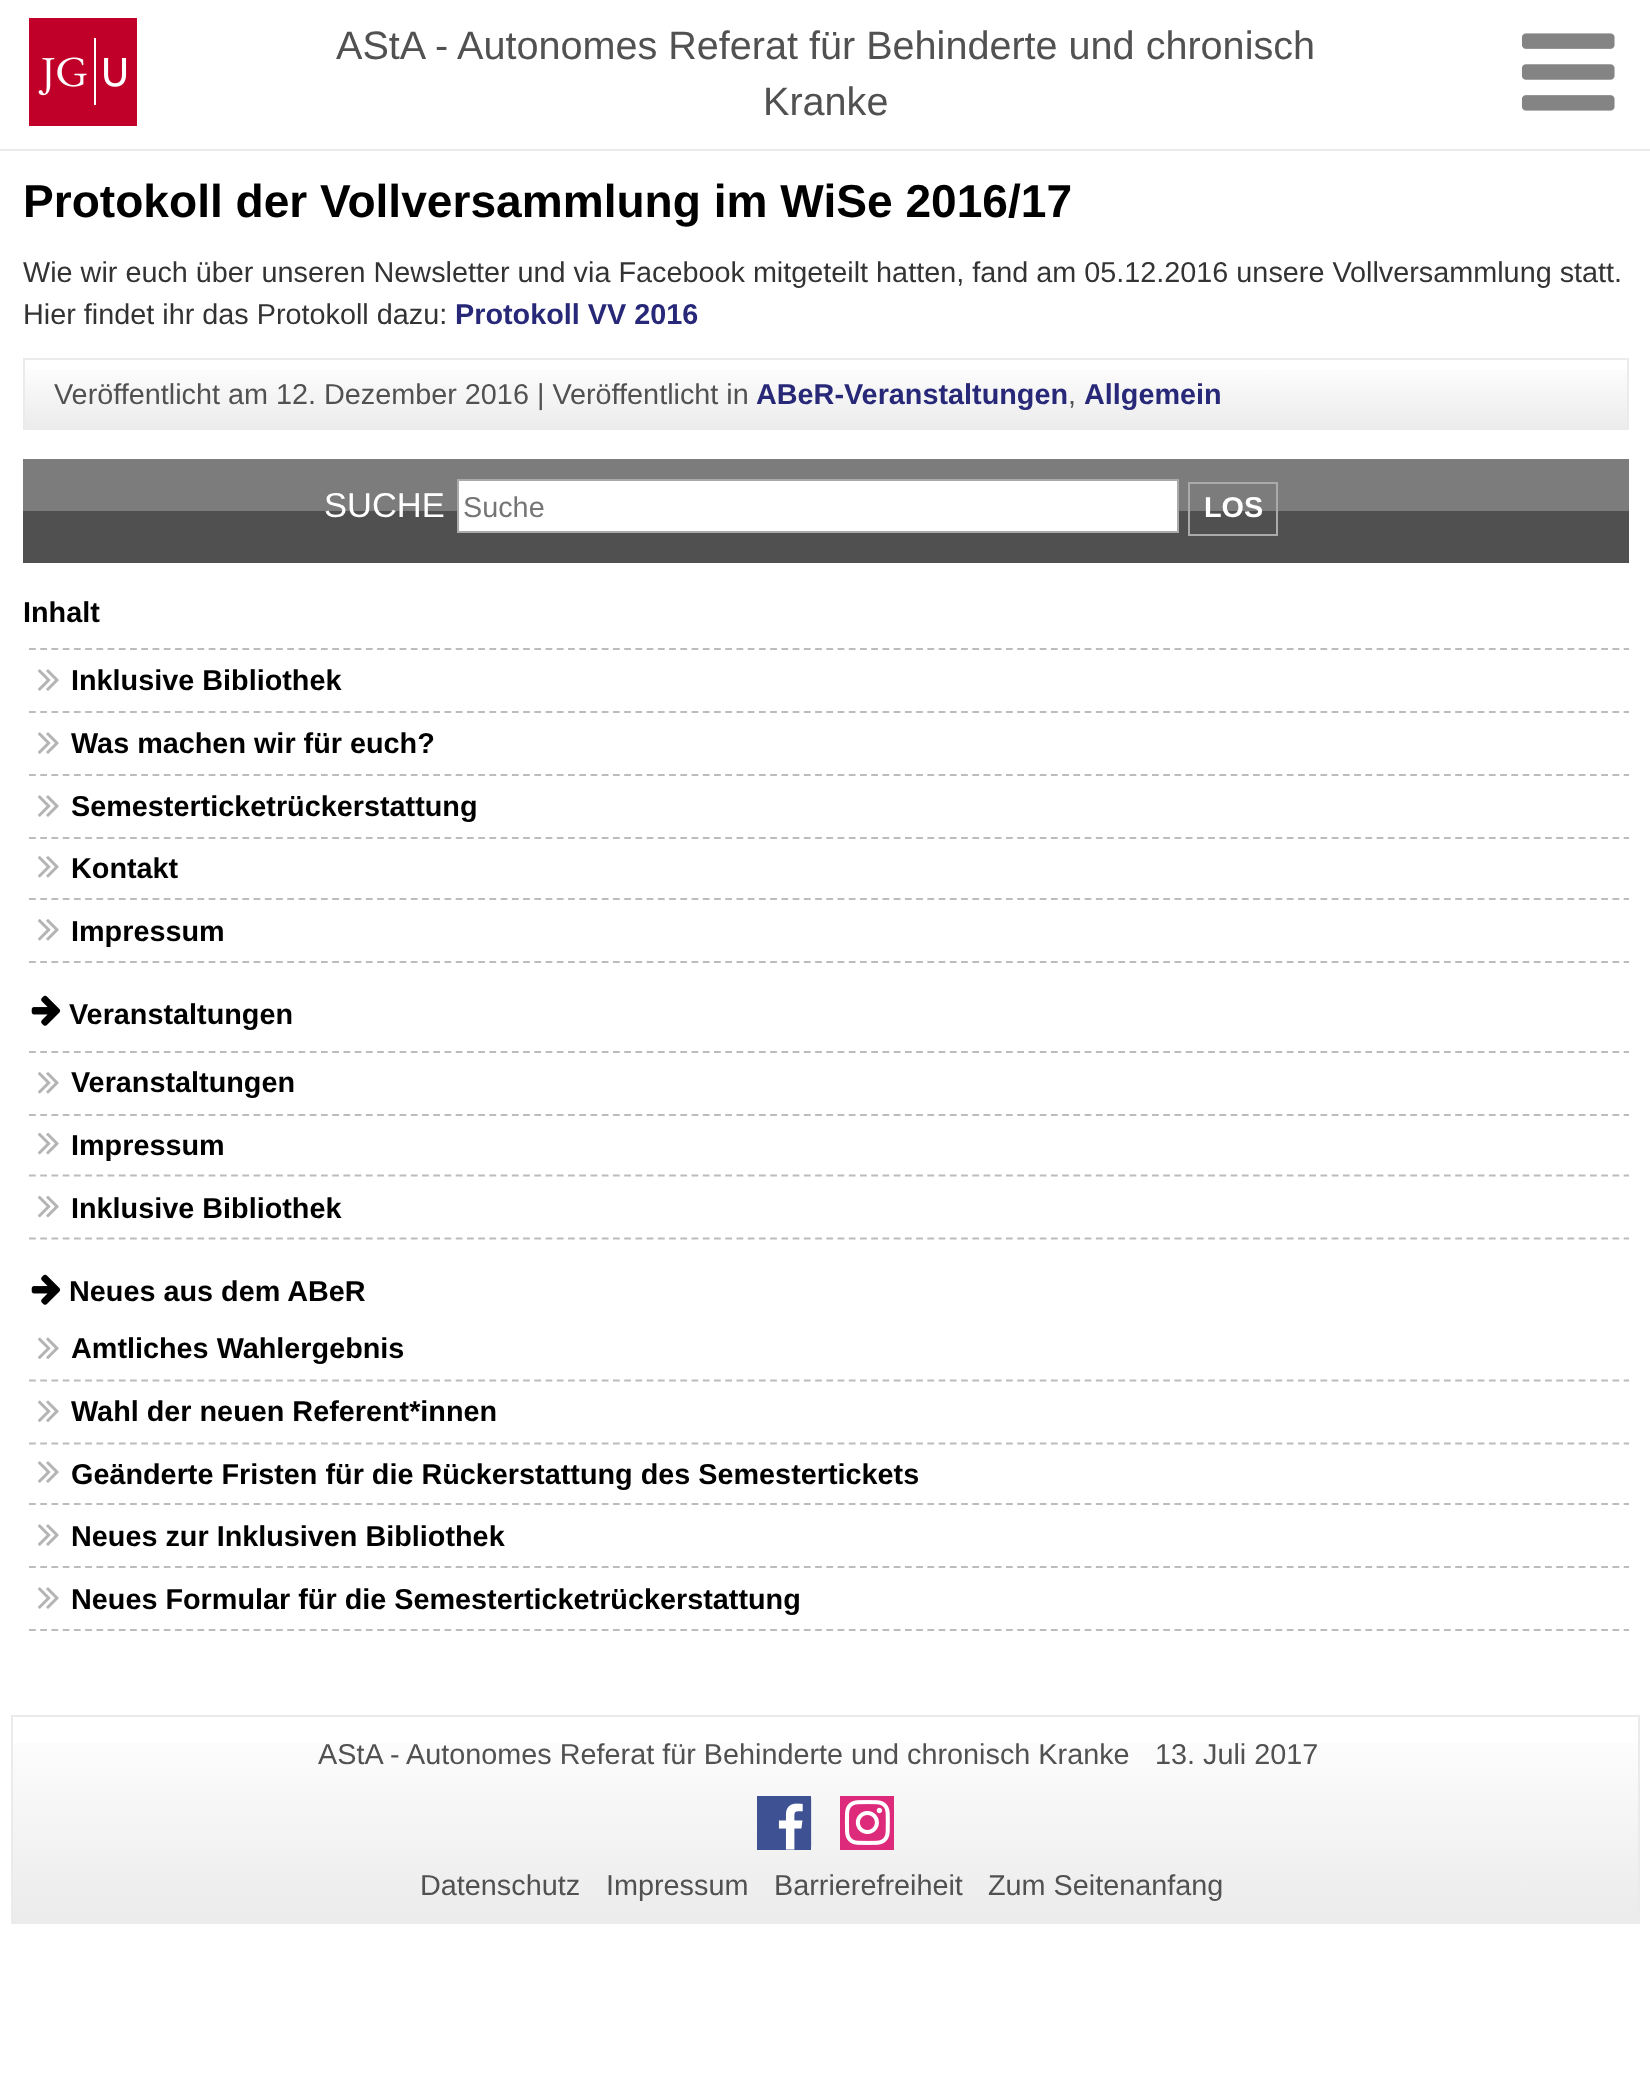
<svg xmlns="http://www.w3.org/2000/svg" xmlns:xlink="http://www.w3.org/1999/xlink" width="1650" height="2089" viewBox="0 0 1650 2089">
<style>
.cls-1{font:39.6px Liberation Sans;fill:#515151}
.cls-2{font:bold 46.1px Liberation Sans;fill:#000000}
.cls-3{font:28.8px Liberation Sans;fill:#333333}
.cls-4{font:bold 28.8px Liberation Sans;fill:#282879}
.cls-5{font:28.8px Liberation Sans;fill:#515151}
.cls-6{font:34.5px Liberation Sans;fill:#ffffff}
.cls-7{font:28.8px Liberation Sans;fill:#757575}
.cls-8{font:bold 28.8px Liberation Sans;fill:#ffffff}
.cls-9{font:bold 28.8px Liberation Sans;fill:#000000}
</style>
<defs>
<linearGradient id="g1" gradientUnits="userSpaceOnUse" x1="826" y1="360" x2="826" y2="290"><stop offset="0" stop-color="#ebebeb"/><stop offset="1" stop-color="#ffffff"/></linearGradient>
<linearGradient id="g2" gradientUnits="userSpaceOnUse" x1="826" y1="430" x2="826" y2="360"><stop offset="0" stop-color="#ebebeb"/><stop offset="1" stop-color="#ffffff"/></linearGradient>
<linearGradient id="g3" gradientUnits="userSpaceOnUse" x1="826" y1="1922" x2="826" y2="1717"><stop offset="0" stop-color="#ebebeb"/><stop offset="1" stop-color="#ffffff"/></linearGradient>
</defs>
<rect width="100%" height="100%" fill="#ffffff"/>
<rect fill="#ebebeb" x="0" y="149" width="1650" height="2"/>
<image xlink:href="image0.png" x="29" y="18" width="108" height="108"/>
<image xlink:href="image1.png" x="1521" y="33" width="94" height="78"/>
<rect fill="url(#g1)" x="23" y="358" width="1606" height="2"/>
<rect fill="url(#g2)" x="25" y="369" width="1602" height="61"/>
<rect fill="#ebebeb" x="1627" y="358" width="2" height="72"/>
<rect fill="#ebebeb" x="23" y="358" width="2" height="72"/>
<rect fill="#7c7c7c" x="23" y="459" width="1606" height="52"/>
<rect fill="#505050" x="23" y="511" width="1606" height="52"/>
<rect fill="#ffffff" stroke="#aaaaaa" stroke-width="2" x="458" y="480" width="720" height="52"/>
<rect fill="none" stroke="#aaaaaa" stroke-width="2" x="1189" y="483" width="88" height="52"/>
<image xlink:href="image2.png" x="38" y="669" width="21" height="22"/>
<path fill="none" stroke="#bcbcbc" stroke-width="2.2" stroke-dasharray="6.75 4.48" d="M29 649H1629"/>
<path fill="none" stroke="#bcbcbc" stroke-width="2.2" stroke-dasharray="6.75 4.48" d="M29 712H1629"/>
<image xlink:href="image2.png" x="38" y="732" width="21" height="22"/>
<path fill="none" stroke="#bcbcbc" stroke-width="2.2" stroke-dasharray="6.75 4.48" d="M29 775H1629"/>
<image xlink:href="image2.png" x="38" y="795" width="21" height="22"/>
<path fill="none" stroke="#bcbcbc" stroke-width="2.2" stroke-dasharray="6.75 4.48" d="M29 838H1629"/>
<image xlink:href="image3.png" x="38" y="856" width="21" height="22"/>
<path fill="none" stroke="#bcbcbc" stroke-width="2.2" stroke-dasharray="6.75 4.48" d="M29 899H1629"/>
<image xlink:href="image3.png" x="38" y="919" width="21" height="22"/>
<path fill="none" stroke="#bcbcbc" stroke-width="2.2" stroke-dasharray="6.75 4.48" d="M29 962H1629"/>
<image xlink:href="image4.png" x="31" y="995" width="30" height="31"/>
<image xlink:href="image3.png" x="38" y="1072" width="21" height="22"/>
<path fill="none" stroke="#bcbcbc" stroke-width="2.2" stroke-dasharray="6.75 4.48" d="M29 1052H1629"/>
<path fill="none" stroke="#bcbcbc" stroke-width="2.2" stroke-dasharray="6.75 4.48" d="M29 1115H1629"/>
<image xlink:href="image5.png" x="38" y="1132" width="21" height="23"/>
<path fill="none" stroke="#bcbcbc" stroke-width="2.2" stroke-dasharray="6.75 4.48" d="M29 1175.5H1629"/>
<image xlink:href="image5.png" x="38" y="1195" width="21" height="23"/>
<path fill="none" stroke="#bcbcbc" stroke-width="2.2" stroke-dasharray="6.75 4.48" d="M29 1238.5H1629"/>
<image xlink:href="image4.png" x="31" y="1274" width="30" height="31"/>
<image xlink:href="image6.png" x="38" y="1337" width="21" height="22"/>
<path fill="none" stroke="#bcbcbc" stroke-width="2.2" stroke-dasharray="6.75 4.48" d="M29 1380.5H1629"/>
<image xlink:href="image6.png" x="38" y="1400" width="21" height="22"/>
<path fill="none" stroke="#bcbcbc" stroke-width="2.2" stroke-dasharray="6.75 4.48" d="M29 1443.5H1629"/>
<image xlink:href="image2.png" x="38" y="1461" width="21" height="22"/>
<path fill="none" stroke="#bcbcbc" stroke-width="2.2" stroke-dasharray="6.75 4.48" d="M29 1504H1629"/>
<image xlink:href="image2.png" x="38" y="1524" width="21" height="22"/>
<path fill="none" stroke="#bcbcbc" stroke-width="2.2" stroke-dasharray="6.75 4.48" d="M29 1567H1629"/>
<image xlink:href="image2.png" x="38" y="1587" width="21" height="22"/>
<path fill="none" stroke="#bcbcbc" stroke-width="2.2" stroke-dasharray="6.75 4.48" d="M29 1630H1629"/>
<rect fill="url(#g3)" x="13" y="1743" width="1625" height="179"/>
<rect fill="none" stroke="#ebebeb" stroke-width="2" x="12" y="1716" width="1627" height="207"/>
<image xlink:href="image7.png" x="757" y="1796" width="55" height="54"/>
<image xlink:href="image8.png" x="840" y="1796" width="54" height="54"/>
<text class="cls-1" x="336" y="59">AStA - Autonomes Referat für Behinderte und chronisch</text>
<text class="cls-1" x="763" y="115">Kranke</text>
<text class="cls-2" x="23" y="217">Protokoll der Vollversammlung im WiSe 2016/17</text>
<text class="cls-3"><tspan x="23" y="282">Wie wir euch über unseren Newsletter und via Facebook mitgeteilt hatten, fand am 05.12.2016 unsere Vollversammlung statt.</tspan><tspan x="23" y="324">Hier findet ihr das Protokoll dazu:</tspan></text>
<text class="cls-4" x="455" y="324">Protokoll VV 2016</text>
<text class="cls-5" x="54" y="404">Veröffentlicht am 12. Dezember 2016 | Veröffentlicht in</text>
<text class="cls-4" x="756" y="404">ABeR-Veranstaltungen</text>
<text class="cls-5" x="1068" y="404">,</text>
<text class="cls-4" x="1084" y="404">Allgemein</text>
<text class="cls-6" x="324" y="517">SUCHE</text>
<text class="cls-7" x="463" y="517">Suche</text>
<text class="cls-8" x="1204" y="517">LOS</text>
<text class="cls-9" x="23" y="622">Inhalt</text>
<text class="cls-9" x="71" y="690">Inklusive Bibliothek</text>
<text class="cls-9" x="71" y="753">Was machen wir für euch?</text>
<text class="cls-9" x="71" y="816">Semesterticketrückerstattung</text>
<text class="cls-9" x="71" y="878">Kontakt</text>
<text class="cls-9" x="71" y="941">Impressum</text>
<text class="cls-9" x="69" y="1024">Veranstaltungen</text>
<text class="cls-9" x="71" y="1092">Veranstaltungen</text>
<text class="cls-9" x="71" y="1155">Impressum</text>
<text class="cls-9" x="71" y="1218">Inklusive Bibliothek</text>
<text class="cls-9" x="69" y="1301">Neues aus dem ABeR</text>
<text class="cls-9" x="71" y="1358">Amtliches Wahlergebnis</text>
<text class="cls-9" x="71" y="1421">Wahl der neuen Referent*innen</text>
<text class="cls-9" x="71" y="1484">Geänderte Fristen für die Rückerstattung des Semestertickets</text>
<text class="cls-9" x="71" y="1546">Neues zur Inklusiven Bibliothek</text>
<text class="cls-9" x="71" y="1609">Neues Formular für die Semesterticketrückerstattung</text>
<text class="cls-5" x="318" y="1764">AStA - Autonomes Referat für Behinderte und chronisch Kranke</text>
<text class="cls-5" x="1155" y="1764">13. Juli 2017</text>
<text class="cls-5" x="420" y="1895">Datenschutz</text>
<text class="cls-5" x="606" y="1895">Impressum</text>
<text class="cls-5" x="774" y="1895">Barrierefreiheit</text>
<text class="cls-5" x="988" y="1895">Zum Seitenanfang</text>
</svg>
